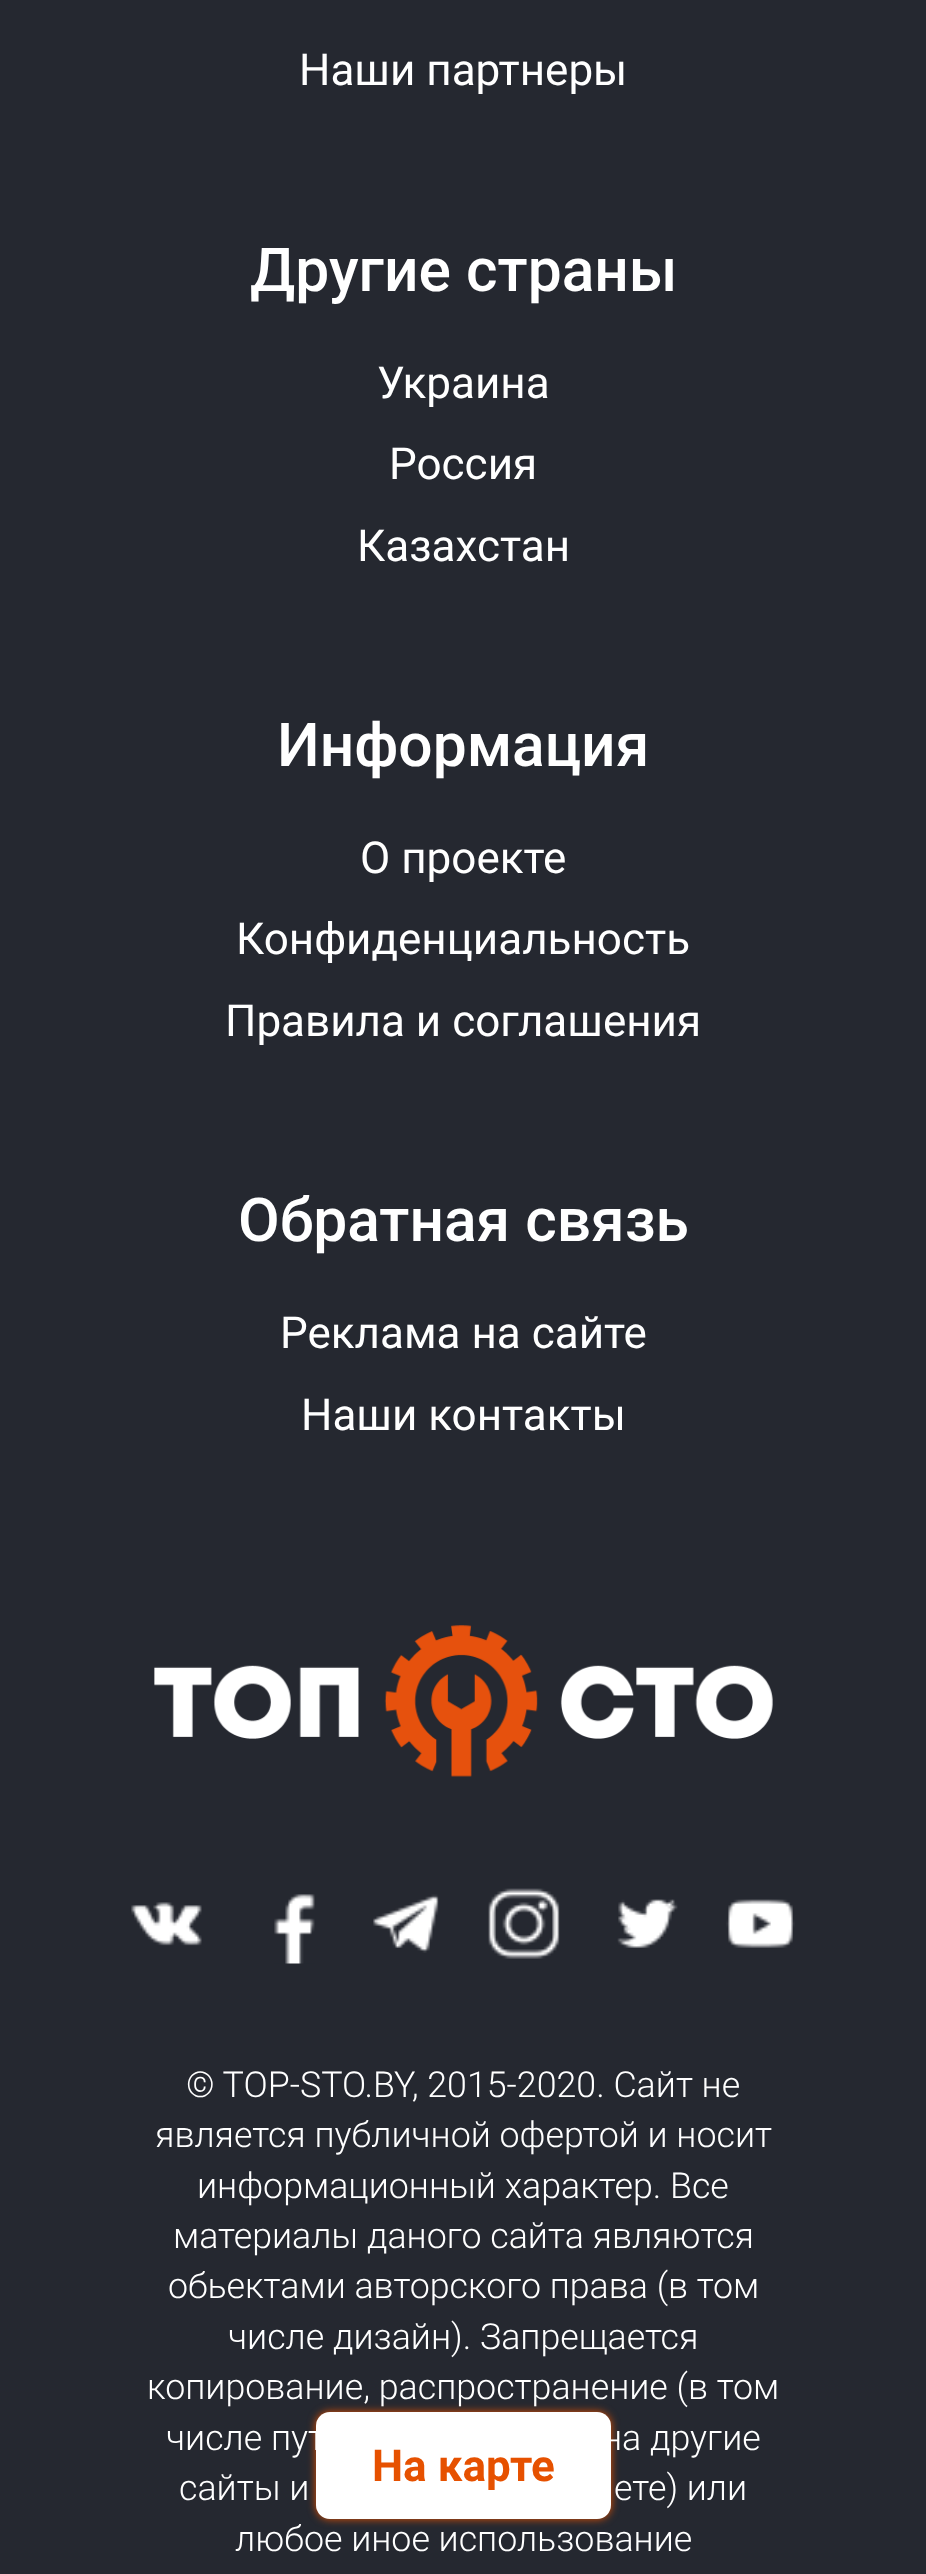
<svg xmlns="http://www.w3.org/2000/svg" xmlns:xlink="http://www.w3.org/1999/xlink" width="926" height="2574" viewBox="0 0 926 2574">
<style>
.cls-1{font:44px Roboto;fill:#ffffff}
.cls-2{font:500 60.5px Roboto;fill:#ffffff}
.cls-3{font:300 35.75px Roboto;fill:#ffffff}
.cls-4{font:bold 44px Roboto;fill:#e65100}
</style>
<rect width="100%" height="100%" fill="#252830"/>
<image xlink:href="image0.png" x="154" y="1625" width="619" height="152"/>
<image xlink:href="image1.png" x="131" y="1902" width="71" height="44"/>
<image xlink:href="image2.png" x="274" y="1894" width="41" height="70"/>
<image xlink:href="image3.png" x="373" y="1894" width="66" height="59"/>
<image xlink:href="image4.png" x="488" y="1888" width="72" height="71"/>
<image xlink:href="image5.png" x="617" y="1899" width="61" height="49"/>
<image xlink:href="image6.png" x="726" y="1899" width="69" height="49"/>
<rect fill="#e65100" filter="blur(4px)" x="316" y="2412" width="295" height="107" rx="14"/>
<rect fill="#ffffff" x="316" y="2412" width="295" height="107" rx="14"/>
<text class="cls-1" x="299" y="85">Наши партнеры</text>
<text class="cls-2" x="250" y="291">Другие страны</text>
<text class="cls-1" x="377" y="398">Украина</text>
<text class="cls-1" x="389" y="479">Россия</text>
<text class="cls-1" x="357" y="561">Казахстан</text>
<text class="cls-2" x="277" y="766">Информация</text>
<text class="cls-1" x="360" y="873">О проекте</text>
<text class="cls-1" x="236" y="954">Конфиденциальность</text>
<text class="cls-1" x="225" y="1036">Правила и соглашения</text>
<text class="cls-2" x="238" y="1241">Обратная связь</text>
<text class="cls-1" x="280" y="1348">Реклама на сайте</text>
<text class="cls-1" x="301" y="1430">Наши контакты</text>
<text class="cls-3" x="186" y="2097">© TOP-STO.BY, 2015-2020. Сайт не</text>
<text class="cls-3" x="155" y="2147">является публичной офертой и носит</text>
<text class="cls-3" x="197" y="2198">информационный характер. Все</text>
<text class="cls-3" x="173" y="2248">материалы даного сайта являются</text>
<text class="cls-3" x="168" y="2298">обьектами авторского права (в том</text>
<text class="cls-3" x="228" y="2349">числе дизайн). Запрещается</text>
<text class="cls-3" x="147" y="2399">копирование, распространение (в том</text>
<text class="cls-3" x="166" y="2450">числе пут</text>
<text class="cls-3" x="602" y="2450">на другие</text>
<text class="cls-3" x="179" y="2500">сайты и</text>
<text class="cls-3" x="614" y="2500">ете) или</text>
<text class="cls-3" x="235" y="2551">любое иное использование</text>
<text class="cls-4" x="372" y="2481">На карте</text>
</svg>
